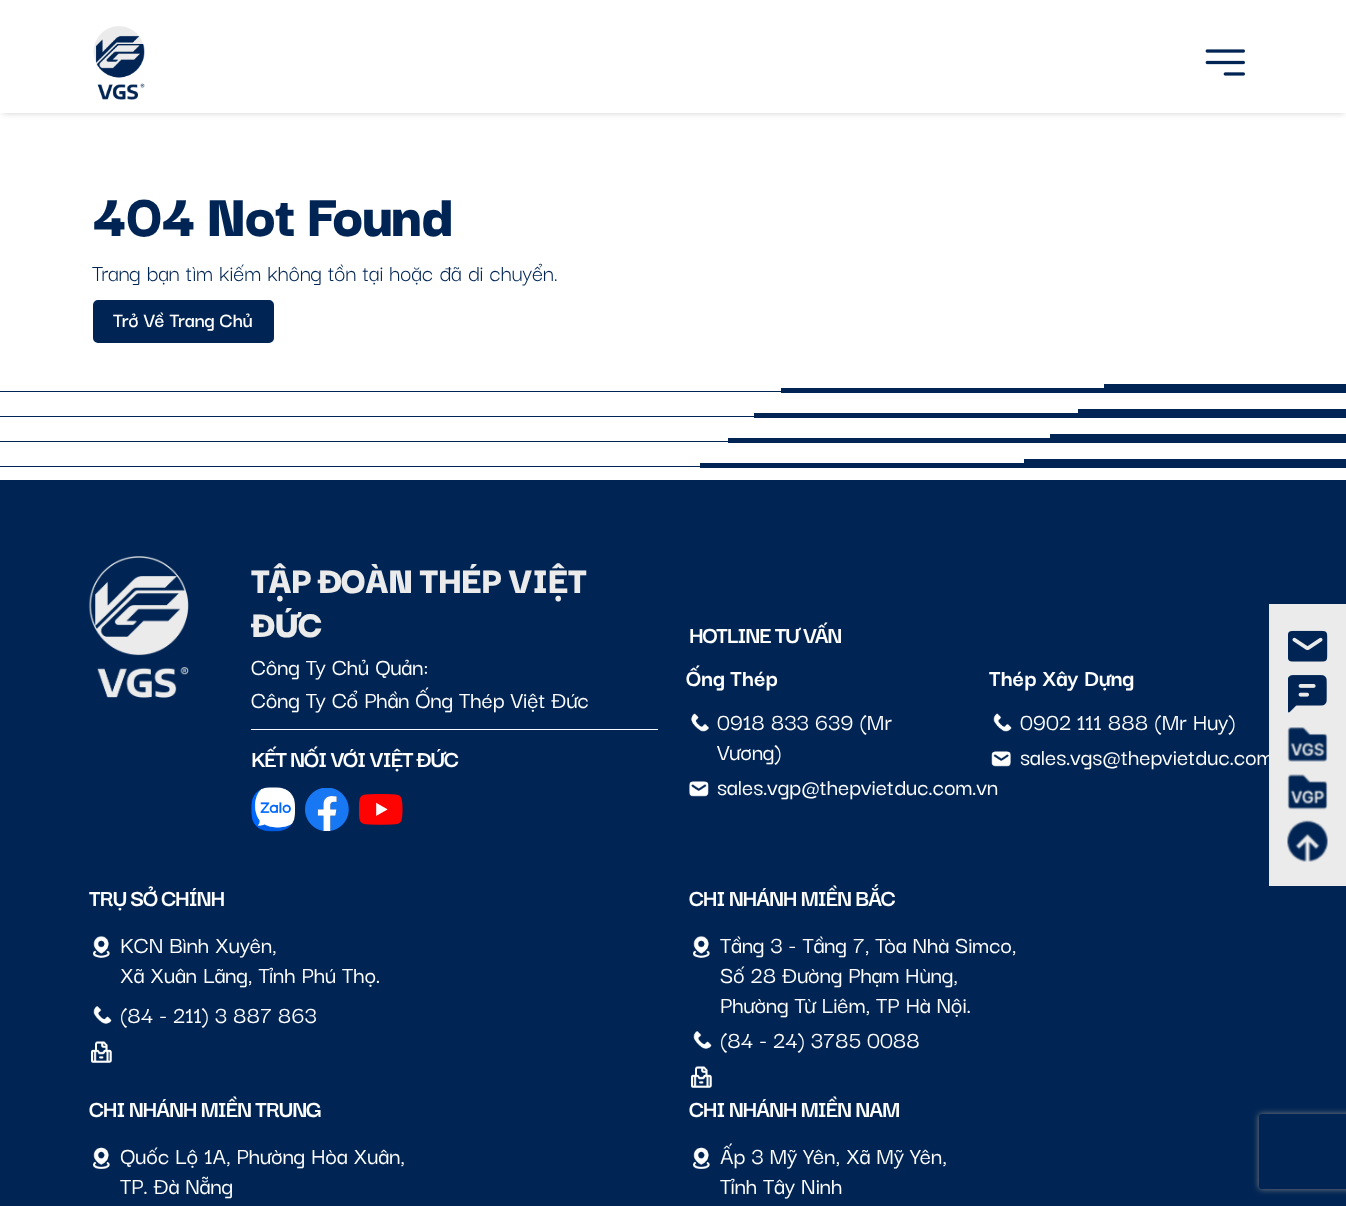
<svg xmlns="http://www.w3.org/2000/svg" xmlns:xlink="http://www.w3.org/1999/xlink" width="1346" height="1206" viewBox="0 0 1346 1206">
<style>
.cls-1{font:900 63.5px Darker Grotesque;letter-spacing:-1.25px;fill:#002554}
.cls-2{font:25px Darker Grotesque;fill:#002554}
.cls-3{font:600 21.75px Darker Grotesque;fill:#ffffff}
.cls-4{font:900 40px Darker Grotesque;letter-spacing:-0.75px;fill:#ebebeb}
.cls-5{font:500 25px Darker Grotesque;fill:#ffffff}
.cls-6{font:bold 25px Darker Grotesque;letter-spacing:-1.25px;fill:#ffffff}
.cls-7{font:bold 25px Darker Grotesque;fill:#ffffff}
</style>
<defs>
<clipPath id="clip1"><path d="M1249 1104H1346V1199H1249ZM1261.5 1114H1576.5C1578 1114 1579 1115 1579 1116.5V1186.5C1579 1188 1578 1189 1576.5 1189H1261.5C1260 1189 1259 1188 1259 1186.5V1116.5C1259 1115 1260 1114 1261.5 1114Z" clip-rule="evenodd"/></clipPath>
</defs>
<rect width="100%" height="100%" fill="#ffffff"/>
<rect fill="#cecece" filter="blur(3px)" x="3" y="5" width="1341" height="108"/>
<rect fill="#ffffff" x="0" y="0" width="1346" height="113"/>
<image xlink:href="image0.png" x="93" y="26" width="52" height="74"/>
<image xlink:href="image1.png" x="1205" y="49" width="40" height="27"/>
<rect fill="#002554" stroke="#002554" stroke-width="3" x="94.5" y="301.5" width="178" height="40" rx="3.5"/>
<rect fill="#002554" x="0" y="391" width="781" height="1"/>
<rect fill="#002554" x="781" y="388" width="323" height="5"/>
<rect fill="#002554" x="1104" y="384" width="242" height="9"/>
<rect fill="#002554" x="0" y="416" width="754" height="1"/>
<rect fill="#002554" x="754" y="413" width="324" height="5"/>
<rect fill="#002554" x="1078" y="409" width="268" height="9"/>
<rect fill="#002554" x="0" y="441" width="728" height="1"/>
<rect fill="#002554" x="728" y="438" width="322" height="5"/>
<rect fill="#002554" x="1050" y="434" width="296" height="9"/>
<rect fill="#002554" x="0" y="466" width="700" height="1"/>
<rect fill="#002554" x="700" y="463" width="324" height="5"/>
<rect fill="#002554" x="1024" y="459" width="322" height="9"/>
<rect fill="#002554" x="0" y="480" width="1346" height="726"/>
<image xlink:href="image2.png" x="88" y="556" width="101" height="142"/>
<rect fill="#f8f9fa" x="251" y="729" width="407" height="1"/>
<image xlink:href="image3.png" x="251" y="787" width="44" height="45"/>
<image xlink:href="image4.png" x="305" y="788" width="44" height="43"/>
<image xlink:href="image5.png" x="359" y="794" width="44" height="31"/>
<image xlink:href="image6.png" x="691" y="713" width="18" height="19"/>
<image xlink:href="image7.png" x="689" y="781" width="20" height="16"/>
<image xlink:href="image8.png" x="993" y="713" width="19" height="19"/>
<image xlink:href="image9.png" x="991" y="751" width="20" height="16"/>
<image xlink:href="image10.png" x="93" y="936" width="17" height="22"/>
<image xlink:href="image11.png" x="93" y="1006" width="19" height="18"/>
<image xlink:href="image12.png" x="91" y="1041" width="21" height="22"/>
<image xlink:href="image10.png" x="693" y="936" width="17" height="22"/>
<image xlink:href="image13.png" x="693" y="1031" width="19" height="18"/>
<image xlink:href="image12.png" x="691" y="1066" width="21" height="22"/>
<image xlink:href="image14.png" x="93" y="1147" width="17" height="22"/>
<image xlink:href="image14.png" x="693" y="1147" width="17" height="22"/>
<g clip-path="url(#clip1)">
<rect fill="#808080" filter="blur(3px)" x="1259" y="1114" width="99" height="75" rx="2.5"/>
</g>
<text class="cls-1" x="92" y="236">404 Not Found</text>
<text class="cls-2" x="92" y="281">Trang bạn tìm kiếm không tồn tại hoặc đã di chuyển.</text>
<text class="cls-3" x="113" y="327">Trở Về Trang Chủ</text>
<text class="cls-4"><tspan x="251" y="593">TẬP ĐOÀN THÉP VIỆT</tspan><tspan x="251" y="637">ĐỨC</tspan></text>
<text class="cls-5"><tspan x="251" y="675">Công Ty Chủ Quản:</tspan><tspan x="251" y="708">Công Ty Cổ Phần Ống Thép Việt Đức</tspan></text>
<text class="cls-6" x="251" y="767">KẾT NỐI VỚI VIỆT ĐỨC</text>
<text class="cls-6" x="689" y="643">HOTLINE TƯ VẤN</text>
<text class="cls-7" x="686" y="686">Ống Thép</text>
<text class="cls-5"><tspan x="717" y="730">0918 833 639 (Mr</tspan><tspan x="717" y="760">Vương)</tspan><tspan x="717" y="795">sales.vgp@thepvietduc.com.vn</tspan></text>
<text class="cls-7" x="989" y="686">Thép Xây Dựng</text>
<text class="cls-5"><tspan x="1020" y="730">0902 111 888 (Mr Huy)</tspan><tspan x="1020" y="765">sales.vgs@thepvietduc.com</tspan></text>
<text class="cls-6" x="89" y="906">TRỤ SỞ CHÍNH</text>
<text class="cls-5"><tspan x="120" y="953">KCN Bình Xuyên,</tspan><tspan x="120" y="983">Xã Xuân Lãng, Tỉnh Phú Thọ.</tspan><tspan x="120" y="1023">(84 - 211) 3 887 863</tspan></text>
<text class="cls-6" x="689" y="906">CHI NHÁNH MIỀN BẮC</text>
<text class="cls-5"><tspan x="720" y="953">Tầng 3 - Tầng 7, Tòa Nhà Simco,</tspan><tspan x="720" y="983">Số 28 Đường Phạm Hùng,</tspan><tspan x="720" y="1013">Phường Từ Liêm, TP Hà Nội.</tspan><tspan x="720" y="1048">(84 - 24) 3785 0088</tspan></text>
<text class="cls-6" x="89" y="1117">CHI NHÁNH MIỀN TRUNG</text>
<text class="cls-5"><tspan x="120" y="1164">Quốc Lộ 1A, Phường Hòa Xuân,</tspan><tspan x="120" y="1194">TP. Đà Nẵng</tspan></text>
<text class="cls-6" x="689" y="1117">CHI NHÁNH MIỀN NAM</text>
<text class="cls-5"><tspan x="720" y="1164">Ấp 3 Mỹ Yên, Xã Mỹ Yên,</tspan><tspan x="720" y="1194">Tỉnh Tây Ninh</tspan></text>
<rect fill="#ebebeb" x="1269" y="604" width="77" height="282"/>
<image xlink:href="image15.png" x="1288" y="630" width="40" height="32"/>
<image xlink:href="image16.png" x="1288" y="675" width="39" height="38"/>
<image xlink:href="image17.png" x="1287" y="727" width="41" height="35"/>
<image xlink:href="image18.png" x="1287" y="774" width="41" height="36"/>
<image xlink:href="image19.png" x="1287" y="820" width="41" height="42"/>
</svg>
